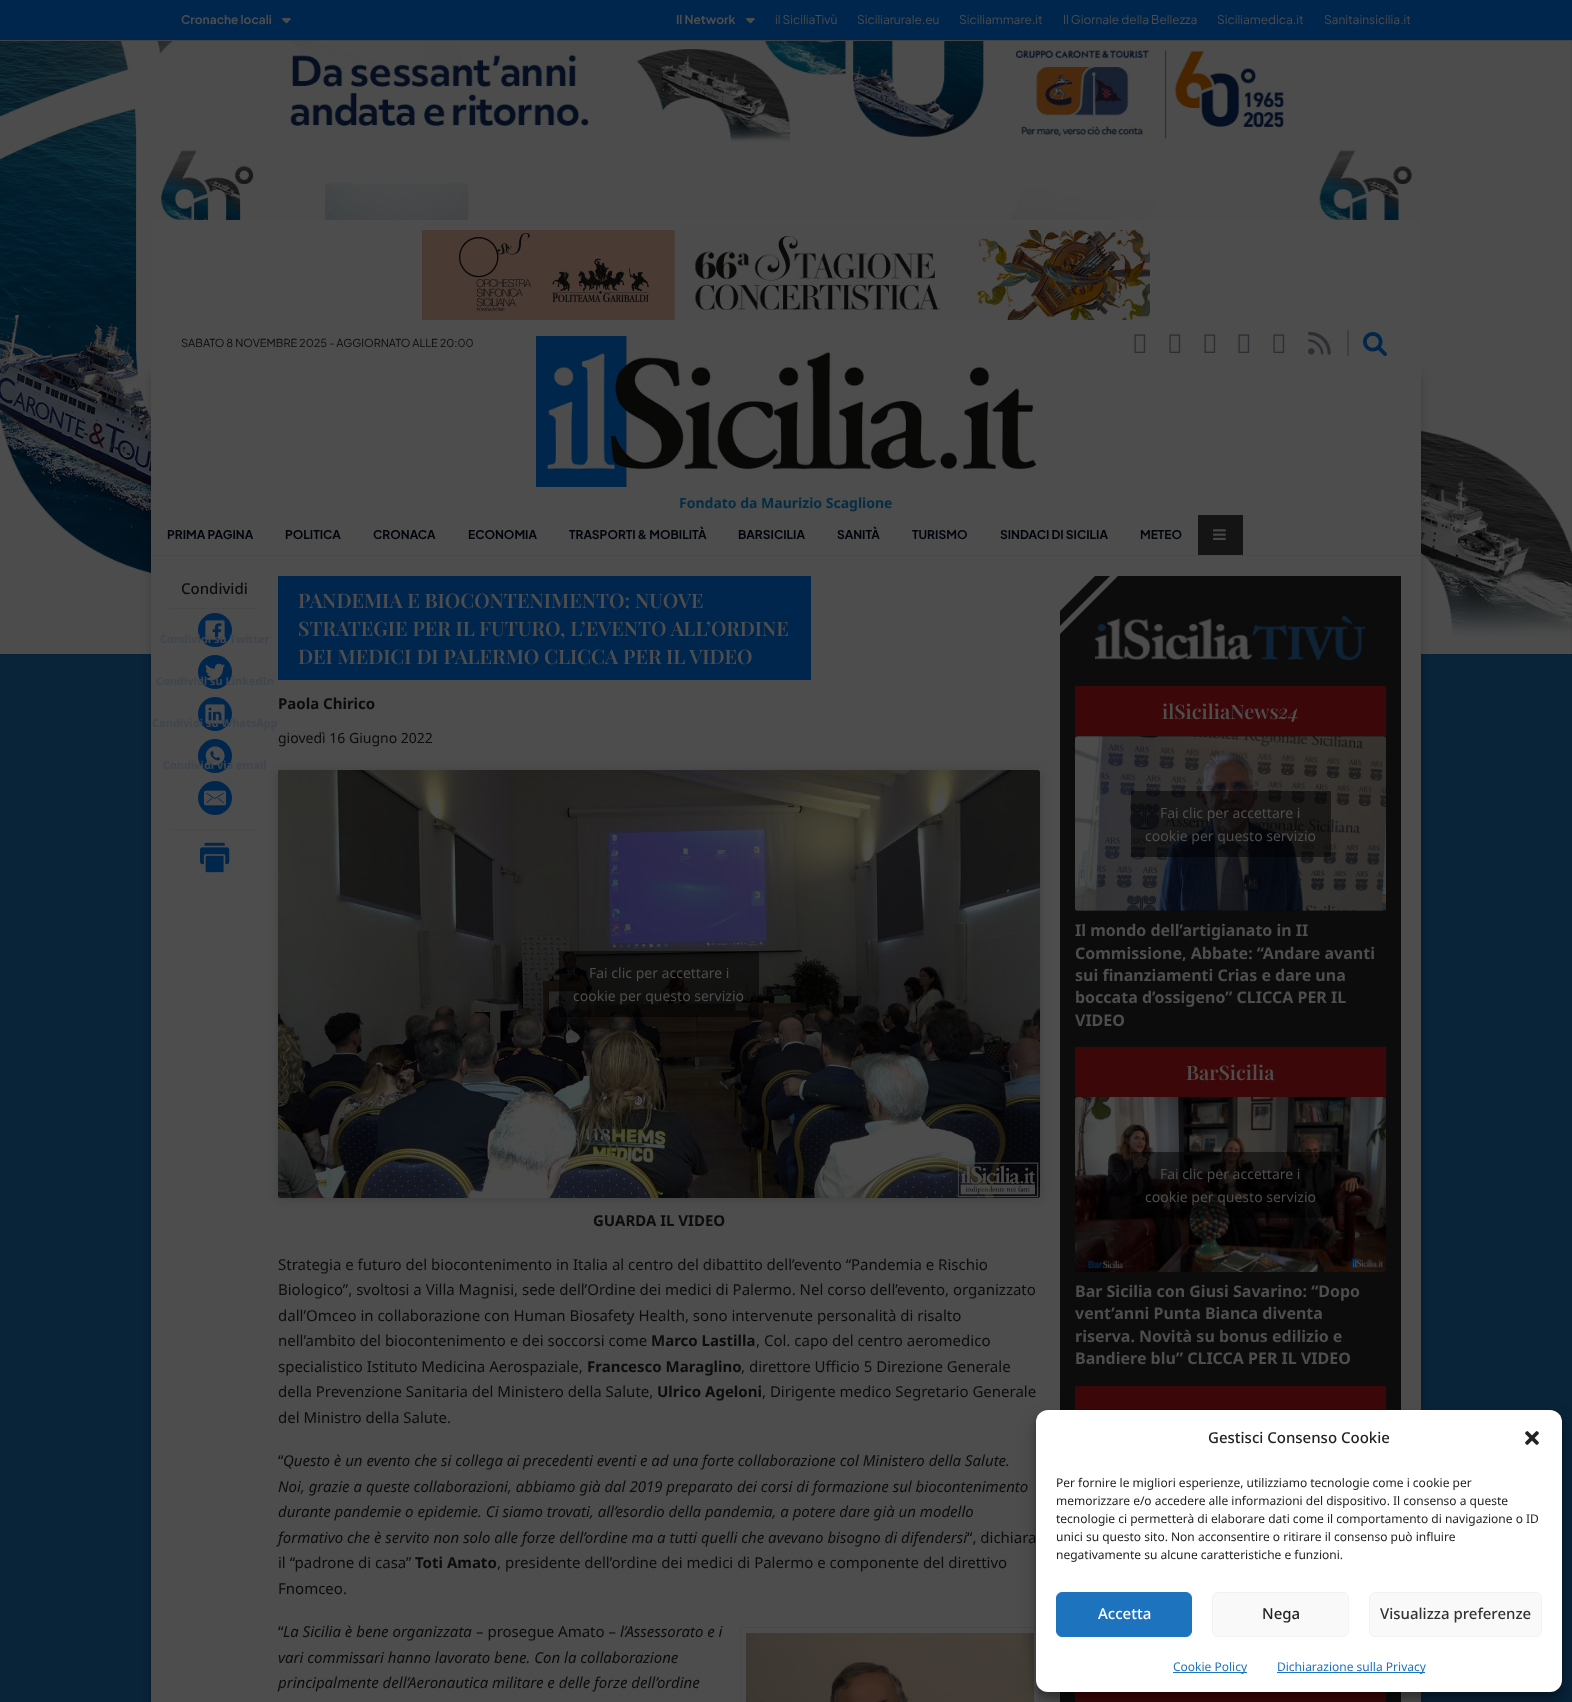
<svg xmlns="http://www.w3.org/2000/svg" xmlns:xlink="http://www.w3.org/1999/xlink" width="1572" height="1702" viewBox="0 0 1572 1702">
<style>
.cls-1{font:bold 12px Plus Jakarta Sans;fill:#4d4d4d}
.cls-2{font:12px Plus Jakarta Sans;fill:#4d4d4d}
.cls-3{font:11px Plus Jakarta Sans;fill:#0c0c0d}
.cls-4{font:bold 14px Noto Sans;fill:#032e45}
.cls-5{font:bold 12px Plus Jakarta Sans;fill:#00040b}
.cls-6{font:500 15px Noto Sans;fill:#0c0c0d}
.cls-7{font:bold 11px Noto Sans;fill:#40464d}
.cls-8{font:600 20px Playfair Display;fill:#4d4d4d}
.cls-9{font:bold 15px Noto Sans;fill:#0c0c0d}
.cls-10{font:14px Noto Sans;fill:#0c0c0d}
.cls-11{font:14px Noto Sans;fill:#4d4d4d}
.cls-12{font:15px Noto Sans;fill:#0c0c0d}
.cls-13{font:italic 15px Noto Sans;fill:#0c0c0d}
.cls-14{font:italic 600 20px Playfair Display;fill:#4d4d4d}
.cls-15{font:bold 16px Noto Sans;fill:#4d4d4d}
.cls-16{font:500 15px Noto Sans;fill:#222222}
.cls-17{font:12px Noto Sans;fill:#222222}
.cls-18{font:500 15px Noto Sans;fill:#ffffff}
.cls-19{font:500 15px Noto Sans;fill:#333333}
.cls-20{font:12px Noto Sans;fill:#1e73be}
</style>
<defs>
<clipPath id="clip1"><rect x="1060" y="576" width="341" height="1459"/></clipPath>
</defs>
<rect width="100%" height="100%" fill="#092339"/>
<rect fill="#00264d" x="0" y="0" width="1572" height="40"/>
<rect fill="#434343" x="0" y="40" width="1572" height="1"/>
<image xlink:href="image0.png" x="282" y="18" width="9" height="6"/>
<image xlink:href="image0.png" x="746" y="18" width="9" height="6"/>
<image xlink:href="image7.png" x="0" y="41" width="1572" height="613"/>
<rect fill="#000000" fill-opacity="0.2" filter="blur(5px)" x="151" y="376" width="1270" height="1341"/>
<rect fill="#4d4d4d" x="151" y="220" width="1270" height="1482"/>
<image xlink:href="image1.png" x="422" y="230" width="728" height="90"/>
<image xlink:href="image2.png" x="1134" y="334" width="12" height="19"/>
<image xlink:href="image2.png" x="1169" y="334" width="12" height="19"/>
<image xlink:href="image2.png" x="1204" y="334" width="12" height="19"/>
<image xlink:href="image2.png" x="1238" y="334" width="12" height="19"/>
<image xlink:href="image2.png" x="1273" y="334" width="12" height="19"/>
<image xlink:href="image3.png" x="1308" y="331" width="23" height="24"/>
<rect fill="#3e3e40" x="1347" y="330" width="2" height="26"/>
<image xlink:href="image4.png" x="1363" y="332" width="24" height="24"/>
<image xlink:href="image5.png" x="536" y="336" width="500" height="151"/>
<rect fill="#494949" x="151" y="555" width="1270" height="1"/>
<rect fill="#141414" x="1198" y="515" width="45" height="40"/>
<image xlink:href="image6.png" x="1213" y="529" width="13" height="11"/>
<rect fill="#494949" x="171" y="608" width="87" height="1"/>
<circle fill="#00264d" cx="215" cy="630" r="17"/>
<image xlink:href="image8.png" x="205" y="620" width="20" height="20"/>
<circle fill="#00264d" cx="215" cy="672" r="17"/>
<image xlink:href="image9.png" x="205" y="663" width="20" height="18"/>
<circle fill="#00264d" cx="215" cy="714" r="17"/>
<image xlink:href="image10.png" x="205" y="704" width="20" height="20"/>
<circle fill="#00264d" cx="215" cy="756" r="17"/>
<image xlink:href="image11.png" x="205" y="746" width="20" height="20"/>
<circle fill="#00264d" cx="215" cy="798" r="17"/>
<image xlink:href="image12.png" x="204" y="790" width="22" height="16"/>
<rect fill="#494949" x="171" y="829" width="87" height="1"/>
<image xlink:href="image13.png" x="200" y="842" width="30" height="31"/>
<rect fill="#00264d" x="278" y="576" width="533" height="104"/>
<rect fill="#000000" fill-opacity="0.15" filter="blur(5px)" x="278" y="771" width="762" height="428" rx="3"/>
<rect fill="#000000" fill-opacity="0.5" filter="blur(0.5px)" x="278" y="770" width="762" height="428" rx="3"/>
<image xlink:href="image14.png" x="278" y="770" width="762" height="428"/>
<rect fill="#000000" fill-opacity="0.5" x="559" y="951" width="200" height="66"/>
<rect fill="none" stroke="#484848" x="740.5" y="1627.5" width="299" height="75"/>
<image xlink:href="image15.png" x="746" y="1633" width="288" height="69"/>
<rect fill="#0c0c0d" x="1060" y="576" width="341" height="1126"/>
<g clip-path="url(#clip1)">
<path fill="#4d4d4d" fill-rule="evenodd" d="M1060 541L1095 576L1060 611L1025 576Z"/>
<path fill="#4d4d4d" d="M1120 574L1049 645L1045 641L1116 570Z"/>
</g>
<image xlink:href="image16.png" x="1095" y="616" width="271" height="44"/>
<rect fill="#3b0708" x="1075" y="686" width="311" height="50"/>
<image xlink:href="image17.png" x="1075" y="736" width="311" height="175"/>
<rect fill="#000000" fill-opacity="0.5" x="1131" y="791" width="200" height="66"/>
<rect fill="#3b0708" x="1075" y="1047" width="311" height="50"/>
<image xlink:href="image18.png" x="1075" y="1097" width="311" height="175"/>
<rect fill="#000000" fill-opacity="0.5" x="1131" y="1152" width="200" height="66"/>
<rect fill="#3b0708" x="1075" y="1386" width="311" height="24"/>
<rect fill="#3b0708" x="1075" y="1692" width="311" height="10"/>
<rect fill="#000000" fill-opacity="0.23" filter="blur(3px)" x="1036" y="1416" width="526" height="282" rx="12"/>
<rect fill="#000000" fill-opacity="0.19" filter="blur(10px)" x="1036" y="1420" width="526" height="282" rx="12"/>
<rect fill="#ffffff" x="1036" y="1410" width="526" height="282" rx="12"/>
<image xlink:href="image19.png" x="1525" y="1431" width="14" height="14"/>
<rect fill="#1e73be" stroke="#1e73be" x="1056.5" y="1592.5" width="135" height="44" rx="5.5"/>
<rect fill="#f9f9f9" stroke="#f2f2f2" x="1212.5" y="1592.5" width="136" height="44" rx="5.5"/>
<rect fill="#f9f9f9" stroke="#f2f2f2" x="1369.5" y="1592.5" width="172" height="44" rx="5.5"/>
<rect fill="#1e73be" x="1173" y="1672" width="74" height="1"/>
<rect fill="#1e73be" x="1277" y="1672" width="148" height="1"/>
<text class="cls-1" x="181" y="24">Cronache locali</text>
<text class="cls-1" x="676" y="24">Il Network</text>
<text class="cls-2" x="775" y="24">il SiciliaTivù</text>
<text class="cls-2" x="857" y="24">Siciliarurale.eu</text>
<text class="cls-2" x="959" y="24">Siciliammare.it</text>
<text class="cls-2" x="1063" y="24">Il Giornale della Bellezza</text>
<text class="cls-2" x="1217" y="24">Siciliamedica.it</text>
<text class="cls-2" x="1324" y="24">Sanitainsicilia.it</text>
<text class="cls-3" x="181" y="347">SABATO 8 NOVEMBRE 2025 - AGGIORNATO ALLE 20:00</text>
<text class="cls-4" x="679" y="508">Fondato da Maurizio Scaglione</text>
<text class="cls-5" x="167" y="539">PRIMA PAGINA</text>
<text class="cls-5" x="285" y="539">POLITICA</text>
<text class="cls-5" x="373" y="539">CRONACA</text>
<text class="cls-5" x="468" y="539">ECONOMIA</text>
<text class="cls-5" x="569" y="539">TRASPORTI &amp; MOBILITÀ</text>
<text class="cls-5" x="738" y="539">BARSICILIA</text>
<text class="cls-5" x="837" y="539">SANITÀ</text>
<text class="cls-5" x="912" y="539">TURISMO</text>
<text class="cls-5" x="1000" y="539">SINDACI DI SICILIA</text>
<text class="cls-5" x="1140" y="539">METEO</text>
<text class="cls-6" x="181" y="594">Condividi</text>
<text class="cls-7" x="160" y="643">Condividi su Twitter</text>
<text class="cls-7" x="156" y="685">Condividi su LinkedIn</text>
<text class="cls-7" x="152" y="727">Condividi su WhatsApp</text>
<text class="cls-7" x="163" y="769">Condividi via email</text>
<text class="cls-8"><tspan x="298" y="608">PANDEMIA E BIOCONTENIMENTO: NUOVE</tspan><tspan x="298" y="636">STRATEGIE PER IL FUTURO, L’EVENTO ALL’ORDINE</tspan><tspan x="298" y="664">DEI MEDICI DI PALERMO CLICCA PER IL VIDEO</tspan></text>
<text class="cls-9" x="278" y="709">Paola Chirico</text>
<text class="cls-10" x="278" y="743">giovedì 16 Giugno 2022</text>
<text class="cls-11" x="589" y="978">Fai clic per accettare i</text>
<text class="cls-11" x="573" y="1001">cookie per questo servizio</text>
<text class="cls-9" x="593" y="1226">GUARDA IL VIDEO</text>
<text class="cls-12"><tspan x="278" y="1270">Strategia e futuro del biocontenimento in Italia al centro del dibattito dell’evento “Pandemia e Rischio</tspan><tspan x="278" y="1295">Biologico”, svoltosi a Villa Magnisi, sede dell’Ordine dei medici di Palermo. Nel corso dell’evento, organizzato</tspan><tspan x="278" y="1321">dall’Omceo in collaborazione con Human Biosafety Health, sono intervenute personalità di risalto</tspan><tspan x="278" y="1346">nell’ambito del biocontenimento e dei soccorsi come</tspan></text>
<text class="cls-9" x="651" y="1346">Marco Lastilla</text>
<text class="cls-12" x="756" y="1346">, Col. capo del centro aeromedico</text>
<text class="cls-12" x="278" y="1372">specialistico Istituto Medicina Aerospaziale,</text>
<text class="cls-9" x="587" y="1372">Francesco Maraglino</text>
<text class="cls-12" x="741" y="1372">, direttore Ufficio 5 Direzione Generale</text>
<text class="cls-12" x="278" y="1397">della Prevenzione Sanitaria del Ministero della Salute,</text>
<text class="cls-9" x="657" y="1397">Ulrico Ageloni</text>
<text class="cls-12" x="762" y="1397">, Dirigente medico Segretario Generale</text>
<text class="cls-12" x="278" y="1423">del Ministro della Salute.</text>
<text class="cls-12" x="278" y="1466">“</text>
<text class="cls-13" x="283" y="1466">Questo è un evento che si collega ai precedenti eventi e ad una forte collaborazione col Ministero della Salute.</text>
<text class="cls-13"><tspan x="278" y="1492">Noi, grazie a queste collaborazioni, abbiamo già dal 2019 preparato dei corsi di formazione sul biocontenimento</tspan><tspan x="278" y="1517">durante pandemie o epidemie. Ci siamo trovati, all’esordio della pandemia, a potere dare già un modello</tspan><tspan x="278" y="1543">formativo che è servito non solo alle forze dell’ordine ma a tutti quelli che avevano bisogno di difendersi</tspan></text>
<text class="cls-12" x="967" y="1543">“, dichiara</text>
<text class="cls-12" x="278" y="1568">il “padrone di casa”</text>
<text class="cls-9" x="415" y="1568">Toti Amato</text>
<text class="cls-12" x="497" y="1568">, presidente dell’ordine dei medici di Palermo e componente del direttivo</text>
<text class="cls-12" x="278" y="1594">Fnomceo.</text>
<text class="cls-12" x="278" y="1637">“</text>
<text class="cls-13" x="283" y="1637">La Sicilia è bene organizzata</text>
<text class="cls-12" x="476" y="1637">– prosegue Amato –</text>
<text class="cls-13" x="620" y="1637">l’Assessorato e i</text>
<text class="cls-13"><tspan x="278" y="1663">vari commissari hanno lavorato bene. Con la collaborazione</tspan><tspan x="278" y="1688">principalmente dell’Aeronautica militare e delle forze dell’ordine</tspan></text>
<text class="cls-8" x="1162" y="719">ilSiciliaNews</text>
<text class="cls-14" x="1278" y="719">24</text>
<text class="cls-11" x="1160" y="818">Fai clic per accettare i</text>
<text class="cls-11" x="1145" y="841">cookie per questo servizio</text>
<text class="cls-15"><tspan x="1075" y="936">Il mondo dell’artigianato in II</tspan><tspan x="1075" y="959">Commissione, Abbate: “Andare avanti</tspan><tspan x="1075" y="981">sui finanziamenti Crias e dare una</tspan><tspan x="1075" y="1003">boccata d’ossigeno” CLICCA PER IL</tspan><tspan x="1075" y="1026">VIDEO</tspan></text>
<text class="cls-8" x="1186" y="1080">BarSicilia</text>
<text class="cls-11" x="1160" y="1179">Fai clic per accettare i</text>
<text class="cls-11" x="1145" y="1202">cookie per questo servizio</text>
<text class="cls-15"><tspan x="1075" y="1297">Bar Sicilia con Giusi Savarino: “Dopo</tspan><tspan x="1075" y="1319">vent’anni Punta Bianca diventa</tspan><tspan x="1075" y="1342">riserva. Novità su bonus edilizio e</tspan><tspan x="1075" y="1364">Bandiere blu” CLICCA PER IL VIDEO</tspan></text>
<text class="cls-16" x="1208" y="1443">Gestisci Consenso Cookie</text>
<text class="cls-17"><tspan x="1056" y="1487">Per fornire le migliori esperienze, utilizziamo tecnologie come i cookie per</tspan><tspan x="1056" y="1505">memorizzare e/o accedere alle informazioni del dispositivo. Il consenso a queste</tspan><tspan x="1056" y="1523">tecnologie ci permetterà di elaborare dati come il comportamento di navigazione o ID</tspan><tspan x="1056" y="1541">unici su questo sito. Non acconsentire o ritirare il consenso può influire</tspan><tspan x="1056" y="1559">negativamente su alcune caratteristiche e funzioni.</tspan></text>
<text class="cls-18" x="1098" y="1619">Accetta</text>
<text class="cls-16" x="1262" y="1619">Nega</text>
<text class="cls-19" x="1380" y="1619">Visualizza preferenze</text>
<text class="cls-20" x="1173" y="1671">Cookie Policy</text>
<text class="cls-20" x="1277" y="1671">Dichiarazione sulla Privacy</text>
</svg>
